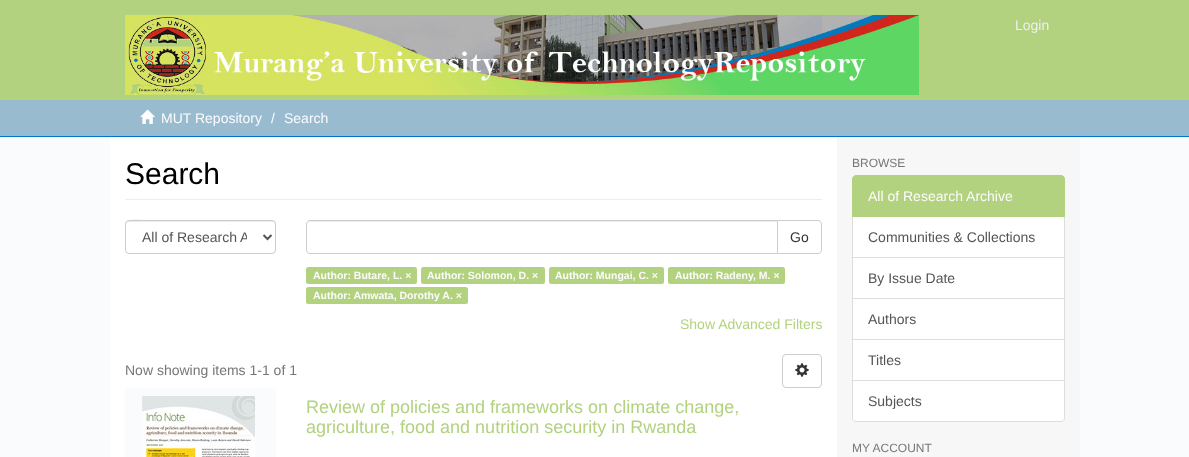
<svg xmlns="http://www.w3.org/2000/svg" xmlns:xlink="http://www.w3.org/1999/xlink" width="1189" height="457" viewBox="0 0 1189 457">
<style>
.cls-1{font:14px Liberation Sans;fill:#eeeeee}
.cls-2{font:14px Liberation Sans;fill:#fcfcfc}
.cls-3{font:30px Liberation Sans;fill:#000000}
.cls-4{font:14px Liberation Sans;fill:#555555}
.cls-5{font:14px Liberation Sans;fill:#333333}
.cls-6{font:bold 10.5px Liberation Sans;fill:#fcfcfc}
.cls-7{font:14px Liberation Sans;fill:#b2d27f}
.cls-8{font:14px Liberation Sans;fill:#777777}
.cls-9{font:18px Liberation Sans;fill:#b2d27f}
.cls-10{font:12px Liberation Sans;fill:#777777}
</style>
<defs>
<clipPath id="clip1"><rect x="142" y="228" width="105" height="18"/></clipPath>
</defs>
<rect width="100%" height="100%" fill="#fafbfc"/>
<rect fill="#b2d27f" x="0" y="0" width="1189" height="100"/>
<image xlink:href="image0.png" x="125" y="15" width="794" height="80"/>
<rect fill="#99bbd0" x="0" y="100" width="1189" height="36"/>
<rect fill="#0073cc" x="0" y="136" width="1189" height="1"/>
<image xlink:href="image1.png" x="140" y="109" width="15" height="15"/>
<rect fill="#f7f7f7" x="837" y="137" width="243" height="320"/>
<rect fill="#ffffff" x="110" y="137" width="727" height="320"/>
<rect fill="#eeeeee" x="125" y="199" width="697" height="1"/>
<path fill="#ececec" d="M129 222H272C274 222 275 223 275 225C275 223 275 222 273 221H153C145 221 126 216 126 225C126 223 127 222 129 222Z"/>
<rect fill="none" stroke="#cccccc" x="125.5" y="220.5" width="150" height="33" rx="3.5"/>
<path fill="none" stroke="#555555" stroke-width="2" d="M263.5 235L267.5 239L271.5 235"/>
<path fill="none" stroke="#cccccc" d="M777.5 220.5H818C820 220.5 821.5 222 821.5 224V250C821.5 252 820 253.5 818 253.5H777.5Z"/>
<path fill="#ffffff" d="M310 220H778V254H310C308 254 306 252 306 250V224C306 222 308 220 310 220Z"/>
<path fill="#ececec" d="M310 222H777V221H310C308 221 307 223 307 225C307 223 308 222 310 222Z"/>
<path fill="none" stroke="#cccccc" d="M310 220.5H777.5V253.5H310C308 253.5 306.5 252 306.5 250V224C306.5 222 308 220.5 310 220.5Z"/>
<rect fill="#b2d27f" x="306" y="267" width="111" height="17" rx="2.5"/>
<rect fill="#b2d27f" x="421" y="267" width="124" height="17" rx="2.5"/>
<rect fill="#b2d27f" x="549" y="267" width="115" height="17" rx="2.5"/>
<rect fill="#b2d27f" x="668" y="267" width="117" height="17" rx="2.5"/>
<rect fill="#b2d27f" x="306" y="287" width="162" height="17" rx="2.5"/>
<rect fill="none" stroke="#cccccc" x="782.5" y="354.5" width="39" height="33" rx="3.5"/>
<image xlink:href="image2.png" x="795" y="363" width="14" height="14"/>
<rect fill="#fafbfc" x="125" y="388" width="151" height="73" rx="4"/>
<image xlink:href="image3.png" x="142" y="396" width="113" height="61"/>
<rect fill="#ffffff" stroke="#dddddd" x="852.5" y="216.5" width="212" height="41"/>
<path fill="#b2d27f" stroke="#b2d27f" d="M856 175.5H1061C1063 175.5 1064.5 177 1064.5 179V216.5H852.5V179C852.5 177 854 175.5 856 175.5Z"/>
<rect fill="#ffffff" stroke="#dddddd" x="852.5" y="257.5" width="212" height="41"/>
<rect fill="#ffffff" stroke="#dddddd" x="852.5" y="298.5" width="212" height="41"/>
<rect fill="#ffffff" stroke="#dddddd" x="852.5" y="339.5" width="212" height="41"/>
<path fill="#ffffff" stroke="#dddddd" d="M852.5 380.5H1064.5V418C1064.5 420 1063 421.5 1061 421.5H856C854 421.5 852.5 420 852.5 418Z"/>
<text class="cls-1" x="1015" y="30">Login</text>
<text class="cls-2" x="161" y="123">MUT Repository</text>
<text class="cls-2" x="271" y="123">/</text>
<text class="cls-2" x="284" y="123">Search</text>
<text class="cls-3" x="125" y="184">Search</text>
<g clip-path="url(#clip1)">
<text class="cls-4" x="142" y="242">All of Research A</text>
</g>
<text class="cls-5" x="790" y="242">Go</text>
<text class="cls-6" x="313" y="279">Author: Butare, L. ×</text>
<text class="cls-6" x="427" y="279">Author: Solomon, D. ×</text>
<text class="cls-6" x="555" y="279">Author: Mungai, C. ×</text>
<text class="cls-6" x="675" y="279">Author: Radeny, M. ×</text>
<text class="cls-6" x="313" y="299">Author: Amwata, Dorothy A. ×</text>
<text class="cls-7" x="680" y="329">Show Advanced Filters</text>
<text class="cls-8" x="125" y="375">Now showing items 1-1 of 1</text>
<text class="cls-9"><tspan x="306" y="413">Review of policies and frameworks on climate change,</tspan><tspan x="306" y="433">agriculture, food and nutrition security in Rwanda</tspan></text>
<text class="cls-10" x="852" y="167">BROWSE</text>
<text class="cls-2" x="868" y="201">All of Research Archive</text>
<text class="cls-4" x="868" y="242">Communities &amp; Collections</text>
<text class="cls-4" x="868" y="283">By Issue Date</text>
<text class="cls-4" x="868" y="324">Authors</text>
<text class="cls-4" x="868" y="365">Titles</text>
<text class="cls-4" x="868" y="406">Subjects</text>
<text class="cls-10" x="852" y="452">MY ACCOUNT</text>
</svg>
